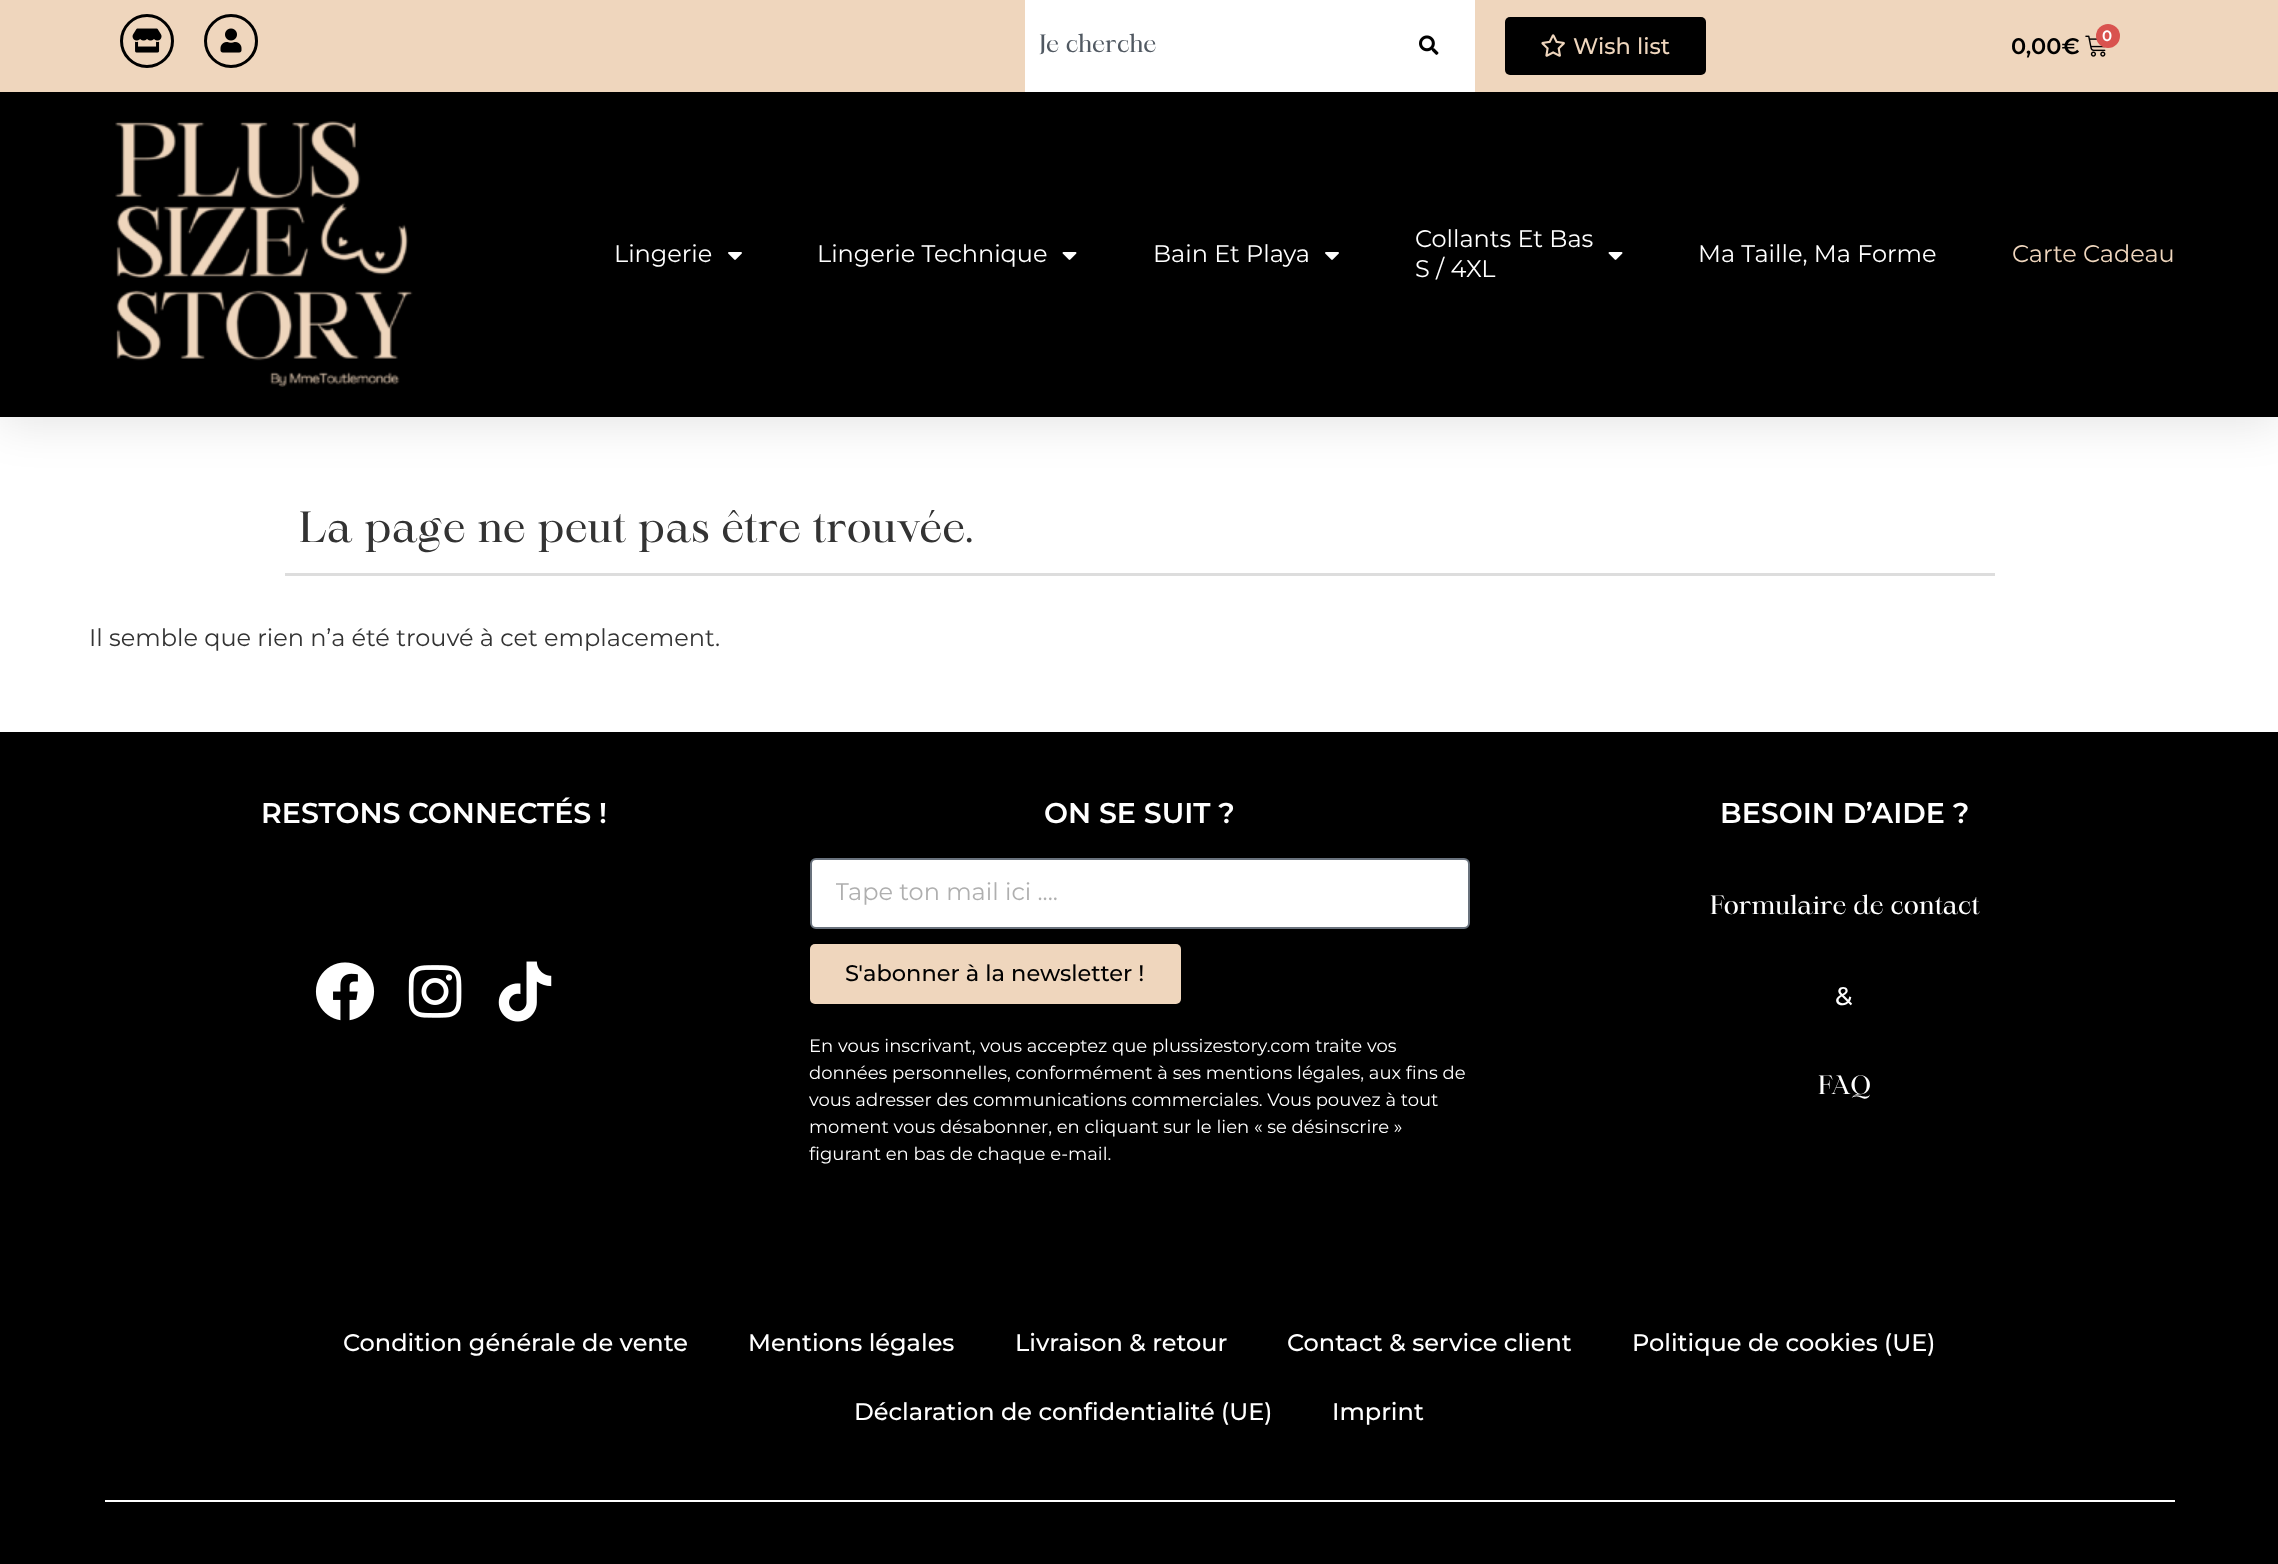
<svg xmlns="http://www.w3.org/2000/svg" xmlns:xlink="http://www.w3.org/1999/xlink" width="2278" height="1564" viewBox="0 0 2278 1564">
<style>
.cls-1{font:24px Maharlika;fill:#515962}
.cls-2{font:500 22.5px Montserrat;fill:#efd6bd}
.cls-3{font:600 15px Montserrat;fill:#ffffff}
.cls-4{font:600 22.5px Montserrat;fill:#000000}
.cls-5{font:24px Montserrat;fill:#ffffff}
.cls-6{font:24px Montserrat;fill:#efd6bd}
.cls-7{font:42px Maharlika;fill:#333333}
.cls-8{font:24px Montserrat;fill:#333333}
.cls-9{font:600 28.5px Montserrat;fill:#ffffff}
.cls-10{font:24px Montserrat;fill:#afafaf}
.cls-11{font:500 22.5px Montserrat;fill:#000000}
.cls-12{font:18px Montserrat;fill:#ffffff}
.cls-13{font:25.5px Maharlika;fill:#ffffff}
.cls-14{font:500 25.5px Montserrat;fill:#ffffff}
.cls-15{font:500 24px Montserrat;fill:#ffffff}
</style>
<defs>
<clipPath id="clip1"><rect x="836" y="878" width="609" height="28"/></clipPath>
</defs>
<rect width="100%" height="100%" fill="#ffffff"/>
<rect fill="#000000" fill-opacity="0.1" filter="blur(22.5px)" x="0" y="8" width="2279" height="417"/>
<rect fill="#efd6bd" x="0" y="0" width="2278" height="92"/>
<circle fill="none" stroke="#000000" stroke-width="3" cx="147" cy="41" r="25.5"/>
<image xlink:href="image0.png" x="132" y="28" width="30" height="25"/>
<circle fill="none" stroke="#000000" stroke-width="3" cx="231" cy="41" r="25.5"/>
<image xlink:href="image1.png" x="220" y="28" width="22" height="25"/>
<rect fill="#ffffff" x="1025" y="0" width="450" height="92"/>
<image xlink:href="image2.png" x="1419" y="35" width="20" height="20"/>
<rect fill="#000000" x="1505" y="17" width="201" height="58" rx="5"/>
<image xlink:href="image3.png" x="1541" y="34" width="24" height="23"/>
<image xlink:href="image4.png" x="2085" y="35" width="21" height="22"/>
<circle fill="#d9534f" cx="2108" cy="36" r="12"/>
<rect fill="#000000" x="0" y="92" width="2278" height="325"/>
<image xlink:href="image5.png" x="115" y="121" width="298" height="266"/>
<image xlink:href="image6.png" x="728" y="252" width="14" height="8"/>
<image xlink:href="image7.png" x="1062" y="252" width="15" height="8"/>
<image xlink:href="image6.png" x="1325" y="252" width="14" height="8"/>
<image xlink:href="image7.png" x="1608" y="252" width="15" height="8"/>
<rect fill="#dddddd" x="285" y="573" width="1710" height="3"/>
<rect fill="#000000" x="0" y="732" width="2278" height="832"/>
<image xlink:href="image8.png" x="315" y="962" width="60" height="59"/>
<image xlink:href="image9.png" x="408" y="965" width="54" height="53"/>
<image xlink:href="image10.png" x="498" y="961" width="54" height="61"/>
<rect fill="#ffffff" stroke="#69727d" stroke-width="2" x="811" y="859" width="658" height="69" rx="5"/>
<rect fill="#efd6bd" x="810" y="944" width="371" height="60" rx="5"/>
<rect fill="#ffffff" x="105" y="1500" width="2070" height="2"/>
<text class="cls-1" x="1039" y="52">Je cherche</text>
<text class="cls-2" x="1573" y="54">Wish list</text>
<text class="cls-3" x="2102" y="41">0</text>
<text class="cls-4" x="2011" y="54">0,00€</text>
<text class="cls-5" x="614" y="262">Lingerie</text>
<text class="cls-5" x="817" y="262">Lingerie Technique</text>
<text class="cls-5" x="1153" y="262">Bain Et Playa</text>
<text class="cls-5"><tspan x="1415" y="247">Collants Et Bas</tspan><tspan x="1415" y="277">S / 4XL</tspan></text>
<text class="cls-5" x="1698" y="262">Ma Taille, Ma Forme</text>
<text class="cls-6" x="2012" y="262">Carte Cadeau</text>
<text class="cls-7" x="299" y="542">La page ne peut pas être trouvée.</text>
<text class="cls-8" x="89" y="646">Il semble que rien n’a été trouvé à cet emplacement.</text>
<text class="cls-9" x="261" y="823">RESTONS CONNECTÉS !</text>
<text class="cls-9" x="1044" y="823">ON SE SUIT ?</text>
<g clip-path="url(#clip1)">
<text class="cls-10" x="835" y="900">Tape ton mail ici ....</text>
</g>
<text class="cls-11" x="845" y="981">S'abonner à la newsletter !</text>
<text class="cls-12"><tspan x="809" y="1052">En vous inscrivant, vous acceptez que plussizestory.com traite vos</tspan><tspan x="809" y="1079">données personnelles, conformément à ses mentions légales, aux fins de</tspan><tspan x="809" y="1106">vous adresser des communications commerciales. Vous pouvez à tout</tspan><tspan x="809" y="1133">moment vous désabonner, en cliquant sur le lien « se désinscrire »</tspan><tspan x="809" y="1160">figurant en bas de chaque e-mail.</tspan></text>
<text class="cls-9" x="1720" y="823">BESOIN D’AIDE ?</text>
<text class="cls-13" x="1710" y="914">Formulaire de contact</text>
<text class="cls-14" x="1835" y="1005">&amp;</text>
<text class="cls-13" x="1818" y="1094">FAQ</text>
<text class="cls-15" x="343" y="1351">Condition générale de vente</text>
<text class="cls-15" x="748" y="1351">Mentions légales</text>
<text class="cls-15" x="1015" y="1351">Livraison &amp; retour</text>
<text class="cls-15" x="1287" y="1351">Contact &amp; service client</text>
<text class="cls-15" x="1632" y="1351">Politique de cookies (UE)</text>
<text class="cls-15" x="854" y="1420">Déclaration de confidentialité (UE)</text>
<text class="cls-15" x="1332" y="1420">Imprint</text>
</svg>
